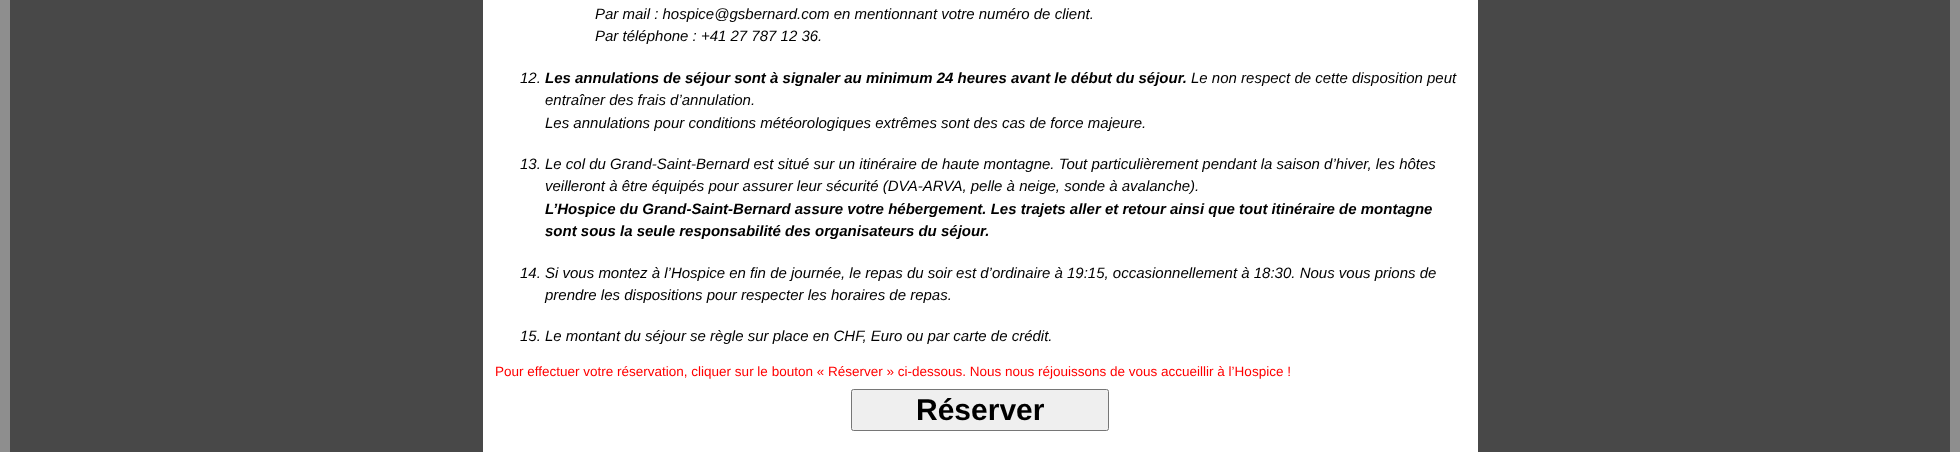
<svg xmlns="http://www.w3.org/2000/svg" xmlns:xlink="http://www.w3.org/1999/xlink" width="1960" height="452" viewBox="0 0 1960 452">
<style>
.cls-1{font:italic 15px Liberation Sans;fill:#000000}
.cls-2{font:italic bold 15px Liberation Sans;fill:#000000}
.cls-3{font:13.5px Liberation Sans;fill:#ff0000}
.cls-4{font:bold 30px Liberation Sans;fill:#000000}
</style>
<rect width="100%" height="100%" fill="#8e8e8e"/>
<rect fill="#484848" x="10" y="0" width="1940" height="452"/>
<rect fill="#ffffff" x="483" y="0" width="995" height="452"/>
<rect fill="#efefef" stroke="#767676" x="851.5" y="389.5" width="257" height="41" rx="2"/>
<text class="cls-1"><tspan x="595" y="19">Par mail : hospice@gsbernard.com en mentionnant votre numéro de client.</tspan><tspan x="595" y="41">Par téléphone : +41 27 787 12 36.</tspan></text>
<text class="cls-1" x="520" y="83">12.</text>
<text class="cls-2" x="545" y="83">Les annulations de séjour sont à signaler au minimum 24 heures avant le début du séjour.</text>
<text class="cls-1" x="1191" y="83">Le non respect de cette disposition peut</text>
<text class="cls-1"><tspan x="545" y="105">entraîner des frais d’annulation.</tspan><tspan x="545" y="128">Les annulations pour conditions météorologiques extrêmes sont des cas de force majeure.</tspan></text>
<text class="cls-1" x="520" y="169">13. Le col du Grand-Saint-Bernard est situé sur un itinéraire de haute montagne. Tout particulièrement pendant la saison d’hiver, les hôtes</text>
<text class="cls-1" x="545" y="191">veilleront à être équipés pour assurer leur sécurité (DVA-ARVA, pelle à neige, sonde à avalanche).</text>
<text class="cls-2"><tspan x="545" y="214">L’Hospice du Grand-Saint-Bernard assure votre hébergement. Les trajets aller et retour ainsi que tout itinéraire de montagne</tspan><tspan x="545" y="236">sont sous la seule responsabilité des organisateurs du séjour.</tspan></text>
<text class="cls-1" x="520" y="278">14. Si vous montez à l’Hospice en fin de journée, le repas du soir est d’ordinaire à 19:15, occasionnellement à 18:30. Nous vous prions de</text>
<text class="cls-1" x="545" y="300">prendre les dispositions pour respecter les horaires de repas.</text>
<text class="cls-1" x="520" y="341">15. Le montant du séjour se règle sur place en CHF, Euro ou par carte de crédit.</text>
<text class="cls-3" x="495" y="376">Pour effectuer votre réservation, cliquer sur le bouton « Réserver » ci-dessous. Nous nous réjouissons de vous accueillir à l’Hospice !</text>
<text class="cls-4" x="916" y="420">Réserver</text>
</svg>
